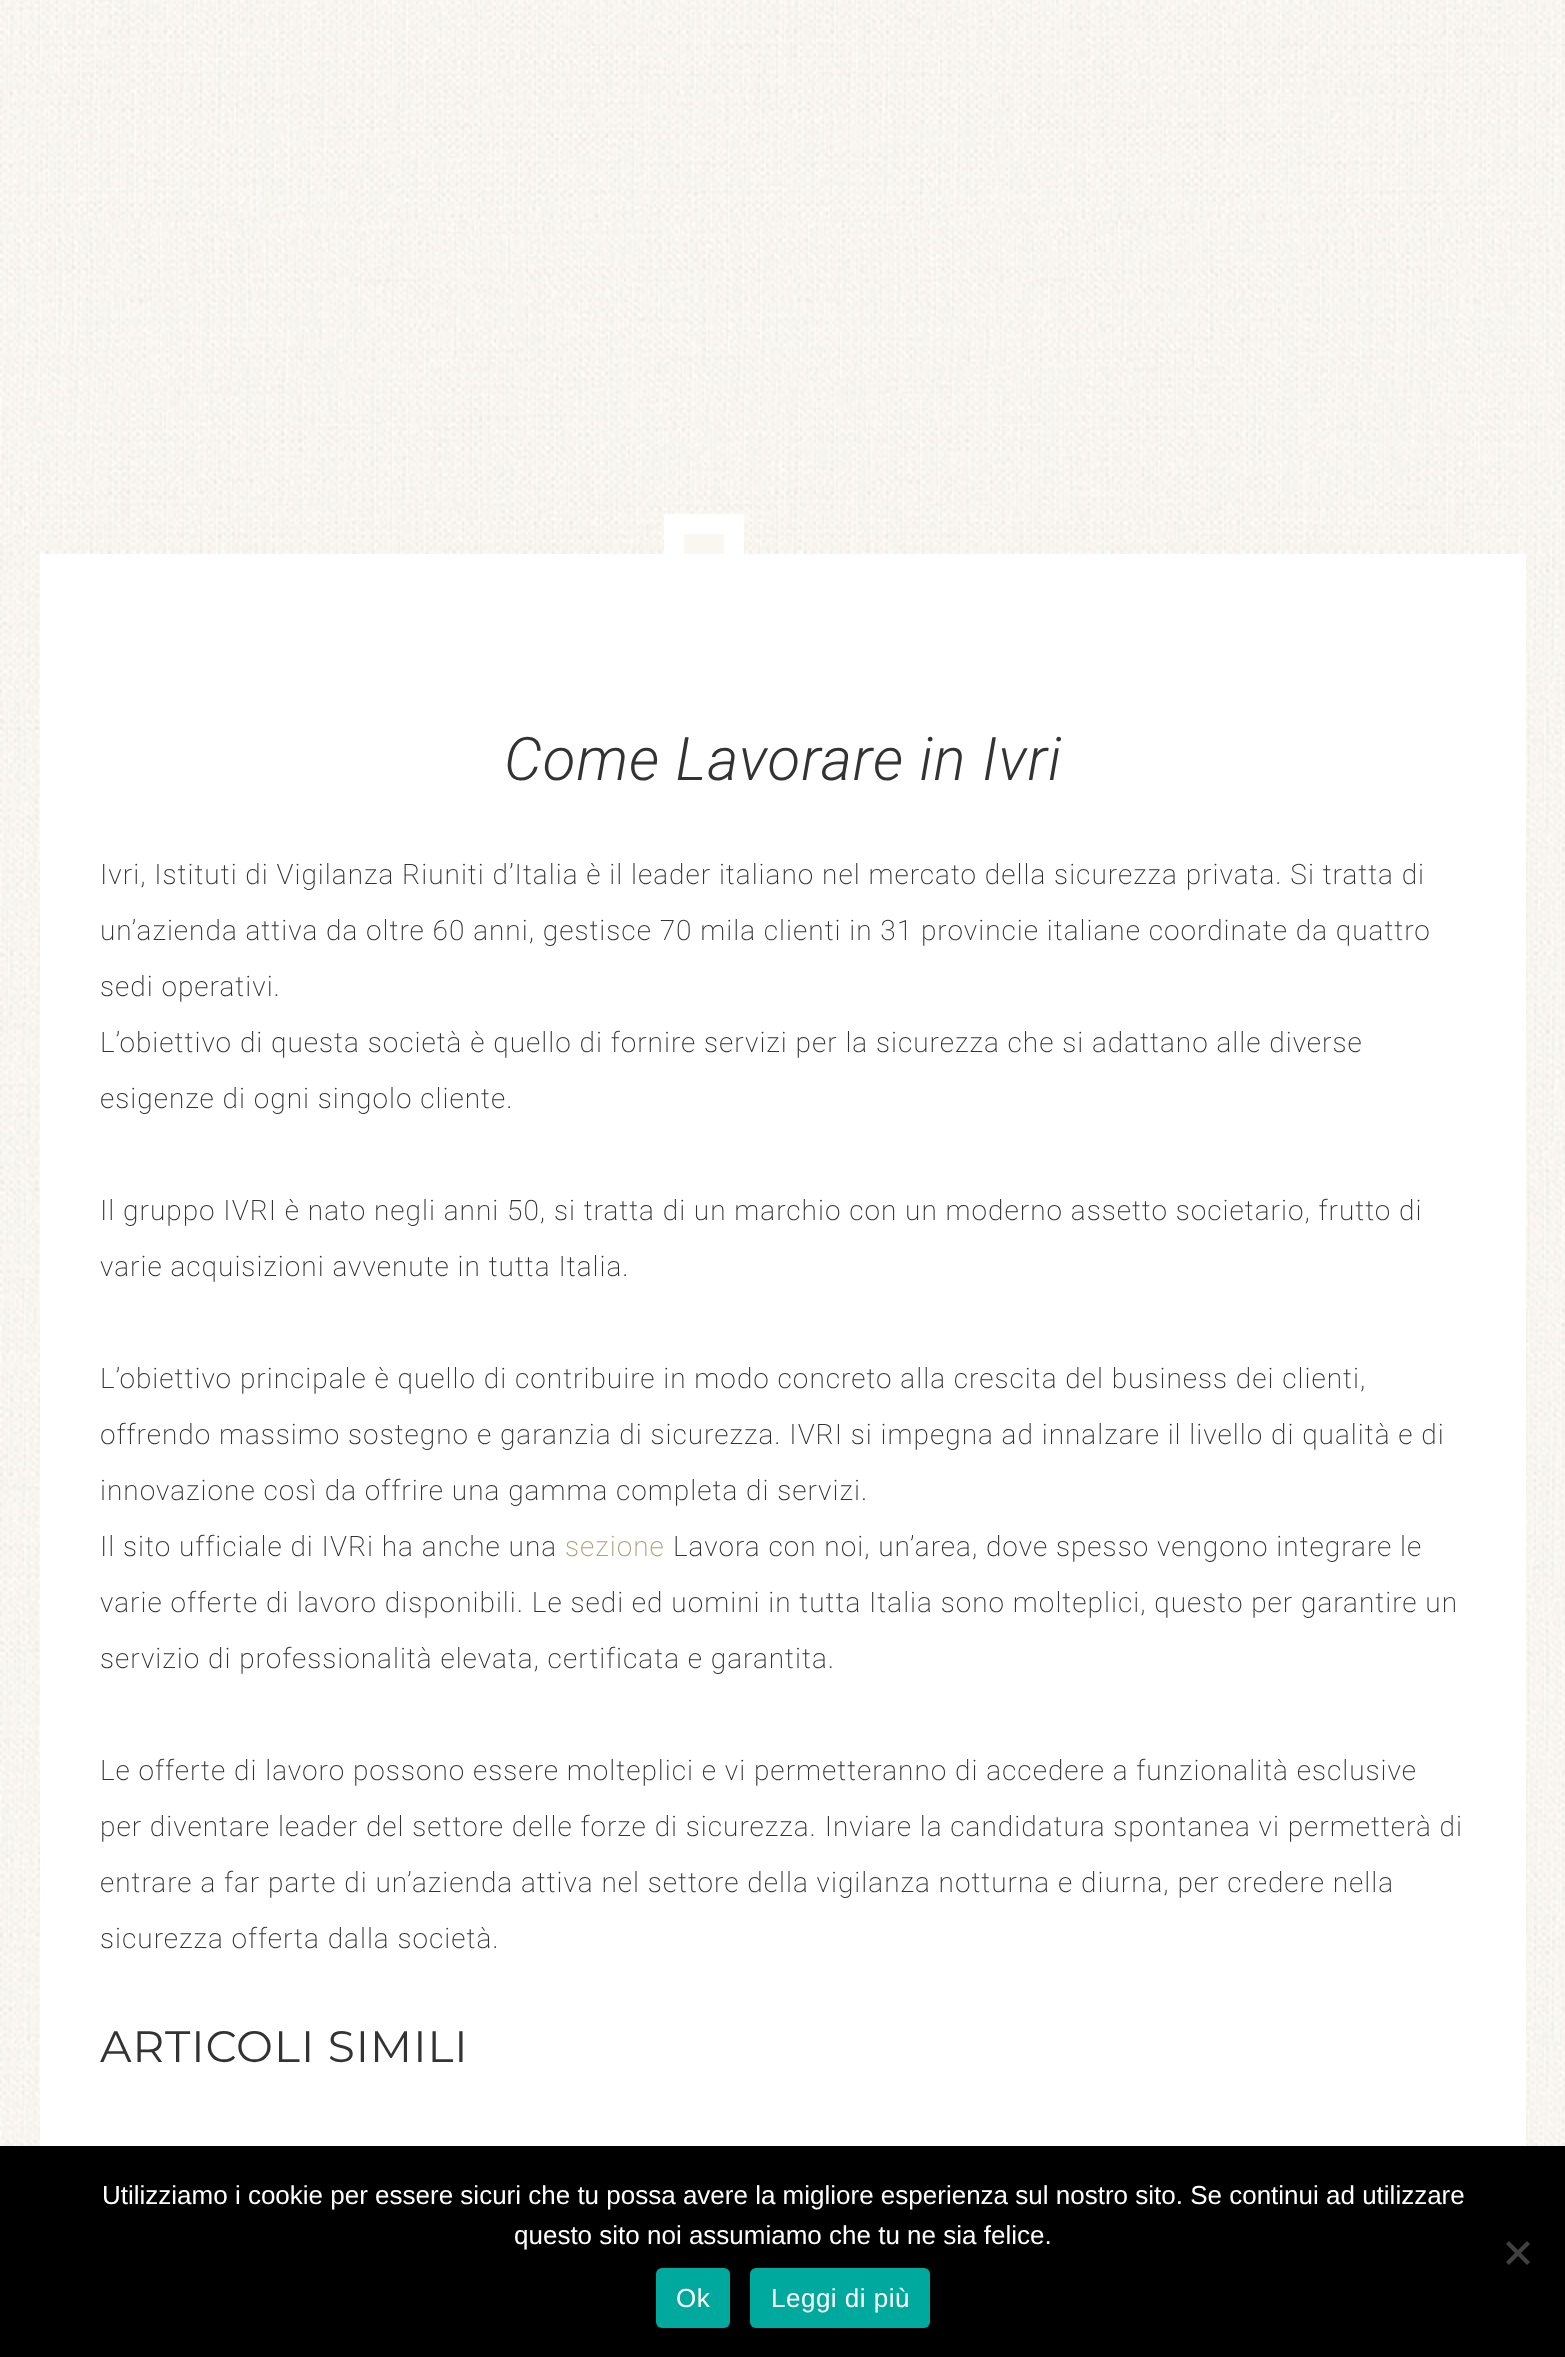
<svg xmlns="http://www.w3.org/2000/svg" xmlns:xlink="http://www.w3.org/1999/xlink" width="1565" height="2357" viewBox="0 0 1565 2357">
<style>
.cls-1{font:italic 300 60px Roboto;letter-spacing:1px;fill:#333333}
.cls-2{font:200 28px Roboto;letter-spacing:1px;fill:#333333}
.cls-3{font:200 28px Roboto;letter-spacing:1px;fill:#ae9d78}
.cls-4{font:44px Montserrat;letter-spacing:1px;fill:#333333}
.cls-5{font:26px Liberation Sans;fill:#ffffff}
.cls-6{font:26px Liberation Sans;letter-spacing:0.5px;fill:#ffffff}
</style>
<rect width="100%" height="100%" fill="#ffffff"/>
<image xlink:href="image0.png" x="0" y="0" width="1565" height="2146"/>
<rect fill="#ffffff" x="40" y="554" width="1486" height="1592"/>
<rect fill="#faf7f2" stroke="#ffffff" stroke-width="20" x="674" y="524" width="60" height="40"/>
<rect fill="#000000" x="0" y="2146" width="1565" height="211"/>
<path fill="#404040" d="M1527 2241L1530 2244L1509 2265L1506 2262Z"/>
<path fill="#404040" d="M1506 2244L1509 2241L1530 2262L1527 2265Z"/>
<rect fill="#00a99d" x="656" y="2268" width="74" height="60" rx="6"/>
<rect fill="#00a99d" x="750" y="2268" width="180" height="60" rx="6"/>
<text class="cls-1" x="504" y="780">Come Lavorare in Ivri</text>
<text class="cls-2" x="100" y="884">Ivri, Istituti di Vigilanza Riuniti d’Italia è il leader italiano nel mercato della sicurezza privata. Si tratta di</text>
<text class="cls-2" x="100" y="940">un’azienda attiva da oltre 60 anni, gestisce 70 mila clienti in 31 provincie italiane coordinate da quattro</text>
<text class="cls-2" x="100" y="996">sedi operativi.</text>
<text class="cls-2" x="100" y="1052">L’obiettivo di questa società è quello di fornire servizi per la sicurezza che si adattano alle diverse</text>
<text class="cls-2" x="100" y="1108">esigenze di ogni singolo cliente.</text>
<text class="cls-2" x="100" y="1220">Il gruppo IVRI è nato negli anni 50, si tratta di un marchio con un moderno assetto societario, frutto di</text>
<text class="cls-2" x="100" y="1276">varie acquisizioni avvenute in tutta Italia.</text>
<text class="cls-2" x="100" y="1388">L’obiettivo principale è quello di contribuire in modo concreto alla crescita del business dei clienti,</text>
<text class="cls-2" x="100" y="1444">offrendo massimo sostegno e garanzia di sicurezza. IVRI si impegna ad innalzare il livello di qualità e di</text>
<text class="cls-2" x="100" y="1500">innovazione così da offrire una gamma completa di servizi.</text>
<text class="cls-2" x="100" y="1556">Il sito ufficiale di IVRi ha anche una</text>
<text class="cls-3" x="565" y="1556">sezione</text>
<text class="cls-2" x="673" y="1556">Lavora con noi, un’area, dove spesso vengono integrare le</text>
<text class="cls-2" x="100" y="1612">varie offerte di lavoro disponibili. Le sedi ed uomini in tutta Italia sono molteplici, questo per garantire un</text>
<text class="cls-2" x="100" y="1668">servizio di professionalità elevata, certificata e garantita.</text>
<text class="cls-2" x="100" y="1780">Le offerte di lavoro possono essere molteplici e vi permetteranno di accedere a funzionalità esclusive</text>
<text class="cls-2" x="100" y="1836">per diventare leader del settore delle forze di sicurezza. Inviare la candidatura spontanea vi permetterà di</text>
<text class="cls-2" x="100" y="1892">entrare a far parte di un’azienda attiva nel settore della vigilanza notturna e diurna, per credere nella</text>
<text class="cls-2" x="100" y="1948">sicurezza offerta dalla società.</text>
<text class="cls-4" x="100" y="2062">ARTICOLI SIMILI</text>
<text class="cls-5" x="102" y="2204">Utilizziamo i cookie per essere sicuri che tu possa avere la migliore esperienza sul nostro sito. Se continui ad utilizzare</text>
<text class="cls-5" x="514" y="2244">questo sito noi assumiamo che tu ne sia felice.</text>
<text class="cls-6" x="676" y="2307">Ok</text>
<text class="cls-6" x="771" y="2307">Leggi di più</text>
</svg>
